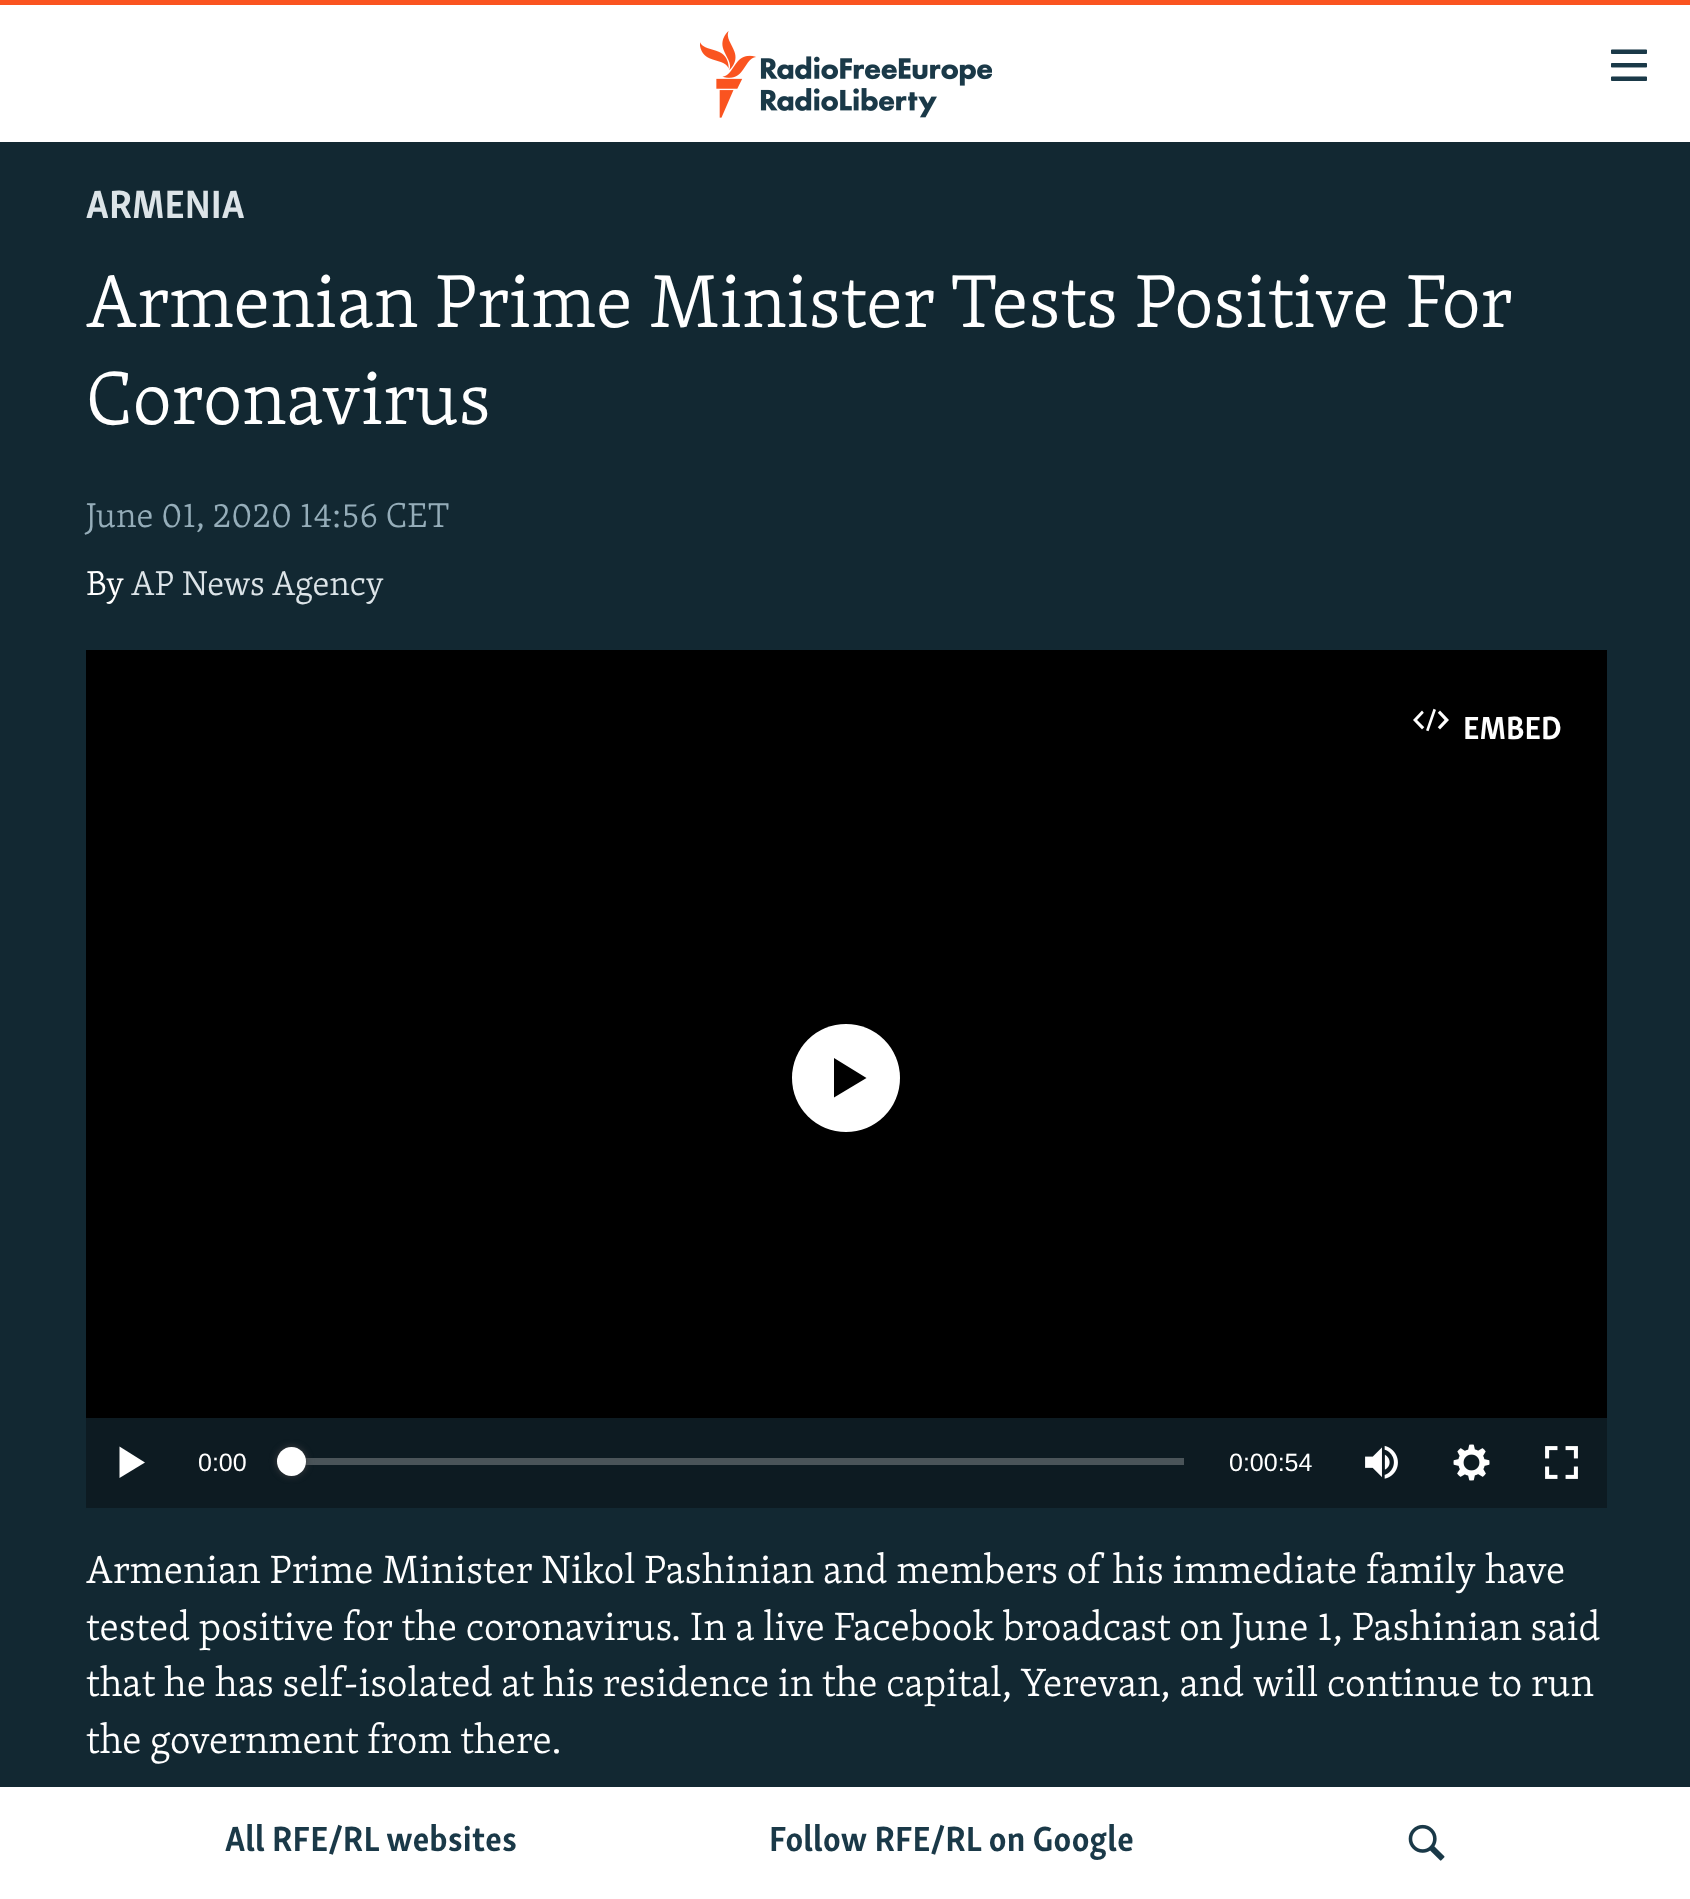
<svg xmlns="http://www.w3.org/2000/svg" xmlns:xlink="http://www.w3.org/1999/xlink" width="1690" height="1899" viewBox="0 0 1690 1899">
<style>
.cls-1{font:bold 40.5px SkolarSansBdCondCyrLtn;fill:#dce4e8}
.cls-2{font:300 77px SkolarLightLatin;fill:#ffffff}
.cls-3{font:300 35.5px SkolarLightLatin;fill:#95adb9}
.cls-4{font:300 35.5px SkolarLightLatin;fill:#ffffff}
.cls-5{font:300 35.5px SkolarLightLatin;fill:#dce4e8}
.cls-6{font:bold 33px SkolarSansBdCondCyrLtn;fill:#ffffff}
.cls-7{font:25px Liberation Sans;fill:#ffffff}
.cls-8{font:300 40.5px SkolarLightLatin;fill:#ffffff}
.cls-9{font:bold 36px SkolarSansBdCondCyrLtn;fill:#1a3948}
</style>
<rect width="100%" height="100%" fill="#122832"/>
<rect fill="#000000" x="86" y="650" width="1521" height="768"/>
<image xlink:href="image0.png" x="1413" y="708" width="36" height="24"/>
<circle fill="#ffffff" cx="846" cy="1078" r="54"/>
<path fill="#000000" d="M834 1097.5L866.5 1078L834 1058Z"/>
<rect fill="#0d1b22" x="86" y="1418" width="1521" height="90"/>
<path fill="#ffffff" d="M119.5 1478L145 1462.5L119.5 1446.5Z"/>
<rect fill="#4a5459" x="305" y="1458" width="879" height="7"/>
<rect fill="#414144" filter="blur(3.5px)" x="277" y="1447" width="29" height="29" rx="14.5"/>
<circle fill="#ffffff" cx="291.5" cy="1461.5" r="14.5"/>
<image xlink:href="image1.png" x="1365" y="1445" width="33" height="34"/>
<image xlink:href="image2.png" x="1453" y="1444" width="37" height="37"/>
<image xlink:href="image3.png" x="1545" y="1446" width="33" height="33"/>
<rect fill="#ffffff" x="0" y="5" width="1690" height="137"/>
<rect fill="#fa5420" x="0" y="0" width="1690" height="5"/>
<image xlink:href="image4.png" x="700" y="31" width="292" height="87"/>
<image xlink:href="image5.png" x="1611" y="49" width="36" height="32"/>
<rect fill="#ffffff" x="0" y="1787" width="1690" height="112"/>
<image xlink:href="image6.png" x="1408" y="1824" width="37" height="37"/>
<text class="cls-1" x="86" y="218">ARMENIA</text>
<text class="cls-2"><tspan x="86" y="327">Armenian Prime Minister Tests Positive For</tspan><tspan x="86" y="424">Coronavirus</tspan></text>
<text class="cls-3" x="86" y="527">June 01, 2020 14:56 CET</text>
<text class="cls-4" x="86" y="595">By</text>
<text class="cls-5" x="131" y="595">AP News Agency</text>
<text class="cls-6" x="1463" y="739">EMBED</text>
<text class="cls-7" x="198" y="1471">0:00</text>
<text class="cls-7" x="1229" y="1471">0:00:54</text>
<text class="cls-8"><tspan x="86" y="1583">Armenian Prime Minister Nikol Pashinian and members of his immediate family have</tspan><tspan x="86" y="1640">tested positive for the coronavirus. In a live Facebook broadcast on June 1, Pashinian said</tspan><tspan x="86" y="1696">that he has self-isolated at his residence in the capital, Yerevan, and will continue to run</tspan><tspan x="86" y="1753">the government from there.</tspan></text>
<text class="cls-9" x="225" y="1851">All RFE/RL websites</text>
<text class="cls-9" x="769" y="1851">Follow RFE/RL on Google</text>
</svg>
